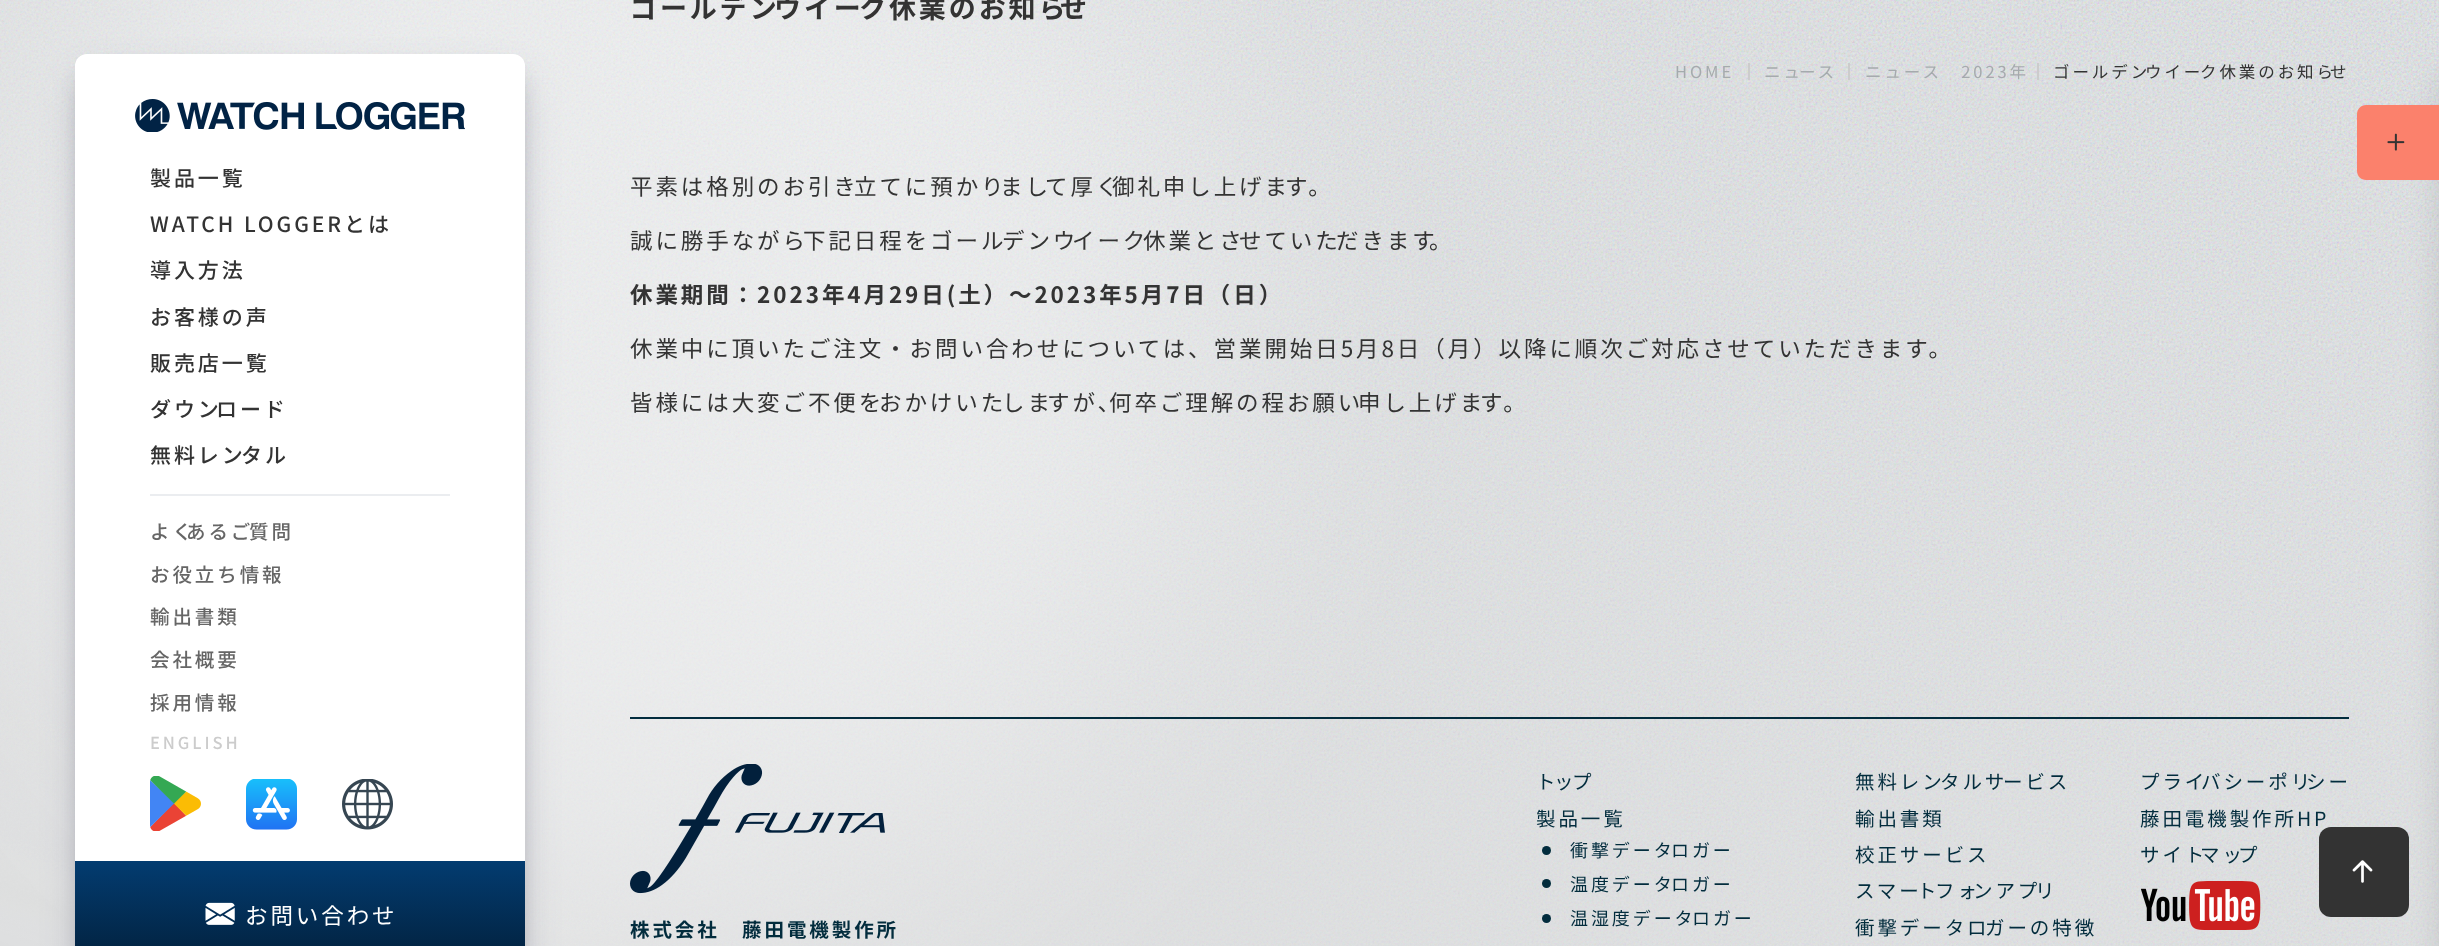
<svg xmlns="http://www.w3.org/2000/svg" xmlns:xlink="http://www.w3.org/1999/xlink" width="2439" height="946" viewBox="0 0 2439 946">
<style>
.cls-1{font:500 21px Noto Sans JP;letter-spacing:2.92px;fill:#333333}
.cls-2{font:500 19.5px Noto Sans JP;letter-spacing:2.92px;fill:#666666}
.cls-3{font:500 16.5px Noto Sans JP;letter-spacing:2.92px;fill:#cccccc}
.cls-4{font:22.5px Noto Sans JP;letter-spacing:2.92px;fill:#ffffff}
.cls-5{font:bold 27px Noto Sans JP;letter-spacing:2.92px;fill:#333333}
.cls-6{font:16.5px Noto Sans JP;letter-spacing:2.92px;fill:#a5aaad}
.cls-7{font:16.5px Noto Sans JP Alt;letter-spacing:2.92px;fill:#a5aaad}
.cls-8{font:16.5px Noto Sans JP;letter-spacing:2.92px;fill:#333333}
.cls-9{font:22.5px Noto Sans JP;letter-spacing:2.92px;fill:#333333}
.cls-10{font:bold 22.5px Noto Sans JP Alt;letter-spacing:2.92px;fill:#333333}
.cls-11{font:22.5px Noto Sans JP Alt;letter-spacing:2.92px;fill:#333333}
.cls-12{font:bold 19.5px Noto Sans JP;letter-spacing:2.92px;fill:#022c3d}
.cls-13{font:19.5px Noto Sans JP;letter-spacing:2.92px;fill:#022c3d}
.cls-14{font:18px Noto Sans JP;letter-spacing:2.92px;fill:#022c3d}
</style>
<defs>
<linearGradient id="g1" gradientUnits="userSpaceOnUse" x1="300" y1="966" x2="300" y2="861"><stop offset="0" stop-color="#02203c"/><stop offset="1" stop-color="#033c70"/></linearGradient>
</defs>
<rect width="100%" height="100%" fill="#e2e6e9"/>
<image xlink:href="image0.png" x="0" y="0" width="2439" height="946"/>
<rect fill="#ffffff" fill-opacity="0.4" filter="blur(150px)" x="0" y="-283" width="1220" height="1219" rx="609.5"/>
<rect fill="#000000" fill-opacity="0.3" filter="blur(12px)" x="87" y="78" width="426" height="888"/>
<rect fill="#32325d" fill-opacity="0.25" filter="blur(20px)" x="83" y="81" width="435" height="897" rx="5"/>
<rect fill="#ffffff" x="75" y="54" width="450" height="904" rx="12"/>
<image xlink:href="image1.png" x="135" y="99" width="330" height="33"/>
<rect fill="#ebedf0" x="150" y="494" width="300" height="2"/>
<image xlink:href="image2.png" x="150" y="776" width="51" height="55"/>
<image xlink:href="image3.png" x="246" y="779" width="51" height="51"/>
<image xlink:href="image4.png" x="342" y="779" width="51" height="51"/>
<rect fill="url(#g1)" x="75" y="861" width="450" height="85"/>
<image xlink:href="image5.png" x="205" y="902" width="30" height="23"/>
<rect fill="#cccccc" x="1748" y="63" width="2" height="17"/>
<rect fill="#cccccc" x="1848" y="63" width="2" height="17"/>
<rect fill="#cccccc" x="2037" y="63" width="2" height="17"/>
<rect fill="#000000" fill-opacity="0.1" filter="blur(15px)" x="2439" y="75" width="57" height="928" rx="12"/>
<path fill="#fb816c" d="M2366 105H2439V180H2366C2361 180 2357 176 2357 171V114C2357 109 2361 105 2366 105Z"/>
<image xlink:href="image6.png" x="2387" y="133" width="18" height="18"/>
<rect fill="#022c3d" x="630" y="717" width="1719" height="2"/>
<image xlink:href="image7.png" x="630" y="764" width="255" height="130"/>
<circle fill="#022c3d" cx="1546.5" cy="850.5" r="4.5"/>
<circle fill="#022c3d" cx="1546.5" cy="883.5" r="4.5"/>
<circle fill="#022c3d" cx="1546.5" cy="918.5" r="4.5"/>
<image xlink:href="image8.png" x="2141" y="881" width="120" height="49"/>
<text class="cls-1" x="150" y="186">製品一覧</text>
<text class="cls-1" x="150" y="232">WATCH LOGGERとは</text>
<text class="cls-1" x="150" y="278">導入方法</text>
<text class="cls-1" x="150" y="325">お客様の声</text>
<text class="cls-1" x="150" y="371">販売店一覧</text>
<text class="cls-1" x="150" y="417">ダウン</text>
<text class="cls-1" x="216" y="417">ロード</text>
<text class="cls-1" x="150" y="463">無料レン</text>
<text class="cls-1" x="241" y="463">タル</text>
<text class="cls-2" x="150" y="539">よく</text>
<text class="cls-2" x="186" y="539">あるご</text>
<text class="cls-2" x="249" y="539">質問</text>
<text class="cls-2" x="150" y="582">お役立ち情報</text>
<text class="cls-2" x="150" y="624">輸出書類</text>
<text class="cls-2" x="150" y="667">会社概要</text>
<text class="cls-2" x="150" y="710">採用情報</text>
<text class="cls-3" x="150" y="749">ENGLISH</text>
<text class="cls-4" x="245" y="924">お問い合わせ</text>
<text class="cls-5" x="630" y="18">ゴールデン</text>
<text class="cls-5" x="774" y="18">ウイー</text>
<text class="cls-5" x="859" y="18">ク休業のお知ら</text>
<text class="cls-5" x="1060" y="18">せ</text>
<text class="cls-6" x="1675" y="78">HOME</text>
<text class="cls-6" x="1764" y="78">ニュ</text>
<text class="cls-6" x="1799" y="78">ース</text>
<text class="cls-7" x="1865" y="78">ニュース　2023年</text>
<text class="cls-8" x="2053" y="78">ゴールデン</text>
<text class="cls-8" x="2145" y="78">ウイー</text>
<text class="cls-8" x="2200" y="78">ク休業のお知ら</text>
<text class="cls-8" x="2330" y="78">せ</text>
<text class="cls-9" x="630" y="195">平素は格別のお引き</text>
<text class="cls-9" x="854" y="195">立てに預かり</text>
<text class="cls-9" x="1000" y="195">まし</text>
<text class="cls-9" x="1045" y="195">て厚く</text>
<text class="cls-9" x="1112" y="195">御礼申し上げま</text>
<text class="cls-9" x="1285" y="195">す。</text>
<text class="cls-9" x="630" y="249">誠に勝手ながら</text>
<text class="cls-9" x="803" y="249">下記日程をゴール</text>
<text class="cls-9" x="1002" y="249">デンウ</text>
<text class="cls-9" x="1072" y="249">イーク</text>
<text class="cls-9" x="1143" y="249">休業とさ</text>
<text class="cls-9" x="1239" y="249">せていた</text>
<text class="cls-9" x="1336" y="249">だきます</text>
<text class="cls-9" x="1429" y="249">。</text>
<text class="cls-10" x="630" y="303">休業期間：2023年4月29日(土）～2023年5月7日（日）</text>
<text class="cls-11" x="630" y="357">休業中に頂いたご注文・お問い合わせについては、営業開始日5月8日（月）以降に順次ご対応させていただきます。</text>
<text class="cls-9" x="630" y="411">皆様には大変ご不便を</text>
<text class="cls-9" x="879" y="411">おかけいた</text>
<text class="cls-9" x="1002" y="411">しま</text>
<text class="cls-9" x="1047" y="411">すが、</text>
<text class="cls-9" x="1109" y="411">何卒ご理解の程お願い</text>
<text class="cls-9" x="1358" y="411">申し上げま</text>
<text class="cls-9" x="1480" y="411">す。</text>
<text class="cls-12" x="630" y="937">株式会社　藤田電機製作所</text>
<text class="cls-13" x="1536" y="789">ト</text>
<text class="cls-13" x="1554" y="789">ッ</text>
<text class="cls-13" x="1572" y="789">プ</text>
<text class="cls-13" x="1536" y="826">製品一覧</text>
<text class="cls-14" x="1570" y="857">衝撃データ</text>
<text class="cls-14" x="1671" y="857">ロガー</text>
<text class="cls-14" x="1570" y="891">温度データ</text>
<text class="cls-14" x="1671" y="891">ロガー</text>
<text class="cls-14" x="1570" y="925">温湿度データ</text>
<text class="cls-14" x="1692" y="925">ロガー</text>
<text class="cls-13" x="1855" y="789">無料レン</text>
<text class="cls-13" x="1940" y="789">タルサ</text>
<text class="cls-13" x="2003" y="789">ービス</text>
<text class="cls-13"><tspan x="1855" y="826">輸出書類</tspan><tspan x="1855" y="862">校正サービス</tspan><tspan x="1855" y="898">スマー</tspan></text>
<text class="cls-13" x="1917" y="898">ト</text>
<text class="cls-13" x="1935" y="898">フォ</text>
<text class="cls-13" x="1973" y="898">ンアプ</text>
<text class="cls-13" x="2035" y="898">リ</text>
<text class="cls-13" x="1855" y="935">衝撃データロ</text>
<text class="cls-13" x="1985" y="935">ガーの特徴</text>
<text class="cls-13" x="2140" y="789">プライ</text>
<text class="cls-13" x="2201" y="789">バシーポリ</text>
<text class="cls-13" x="2306" y="789">シー</text>
<text class="cls-13"><tspan x="2140" y="826">藤田電機製作所HP</tspan><tspan x="2140" y="862">サイト</tspan></text>
<text class="cls-13" x="2200" y="862">マッ</text>
<text class="cls-13" x="2238" y="862">プ</text>
<rect fill="#333333" x="2319" y="827" width="90" height="90" rx="12"/>
<image xlink:href="image9.png" x="2352" y="860" width="21" height="23"/>
</svg>
